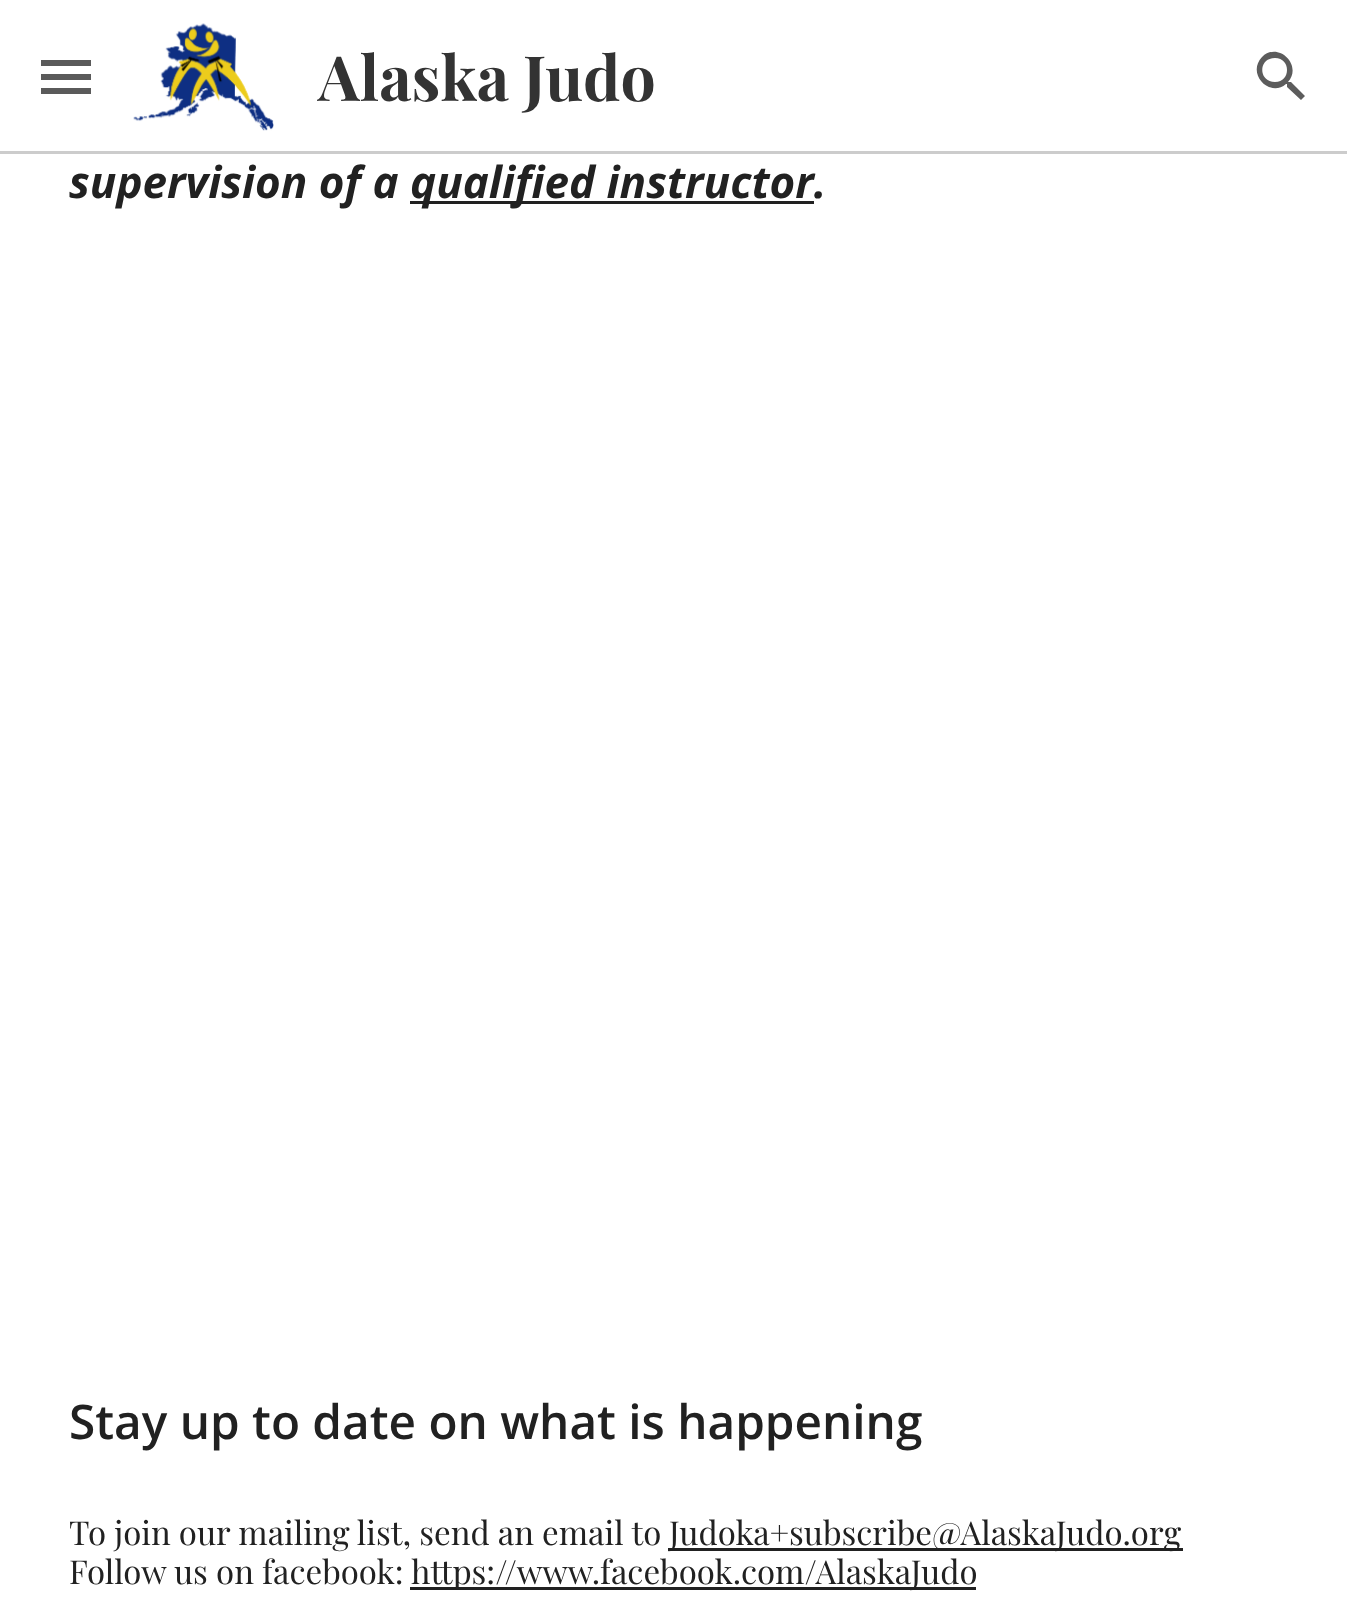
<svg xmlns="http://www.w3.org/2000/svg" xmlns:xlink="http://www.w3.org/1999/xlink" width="1347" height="1610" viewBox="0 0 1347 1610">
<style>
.cls-1{font:bold 62.5px Playfair Display;fill:#333333}
.cls-2{font:italic bold 44px Open Sans;fill:#212121}
.cls-3{font:600 47.7px Open Sans;fill:#212121}
.cls-4{font:33px Playfair Display;fill:#212121}
</style>
<rect width="100%" height="100%" fill="#ffffff"/>
<rect fill="#444444" x="41" y="60" width="50" height="6"/>
<rect fill="#444444" x="41" y="74" width="50" height="6"/>
<rect fill="#444444" x="41" y="88" width="50" height="6"/>
<rect fill="#ffffff" fill-opacity="0.12" x="41" y="60" width="50" height="34"/>
<image xlink:href="image0.png" x="133" y="23" width="141" height="108"/>
<path fill="#5c5c5c" d="M1291 82H1289H1288C1303 65 1278 41 1262 57C1246 74 1270 98 1286 84H1287V87L1301 100L1305 96ZM1275 82C1258 82 1258 58 1275 58C1291 58 1291 82 1275 82Z"/>
<rect fill="#cccccc" x="0" y="151" width="1347" height="3"/>
<rect fill="#212121" x="410" y="201" width="404" height="3"/>
<rect fill="#212121" x="668" y="1548" width="515" height="3"/>
<rect fill="#212121" x="410" y="1587" width="566" height="3"/>
<text class="cls-1" x="318" y="101">Alaska Judo</text>
<text class="cls-2" x="69" y="198">supervision of a</text>
<text class="cls-2" x="410" y="198">qualified instructor.</text>
<text class="cls-3" x="69" y="1439">Stay up to date on what is happening</text>
<text class="cls-4" x="69" y="1545">To join our mailing list, send an email to</text>
<text class="cls-4" x="669" y="1545">Judoka+subscribe@AlaskaJudo.org</text>
<text class="cls-4" x="69" y="1584">Follow us on facebook:</text>
<text class="cls-4" x="411" y="1584">https://www.facebook.com/AlaskaJudo</text>
</svg>
